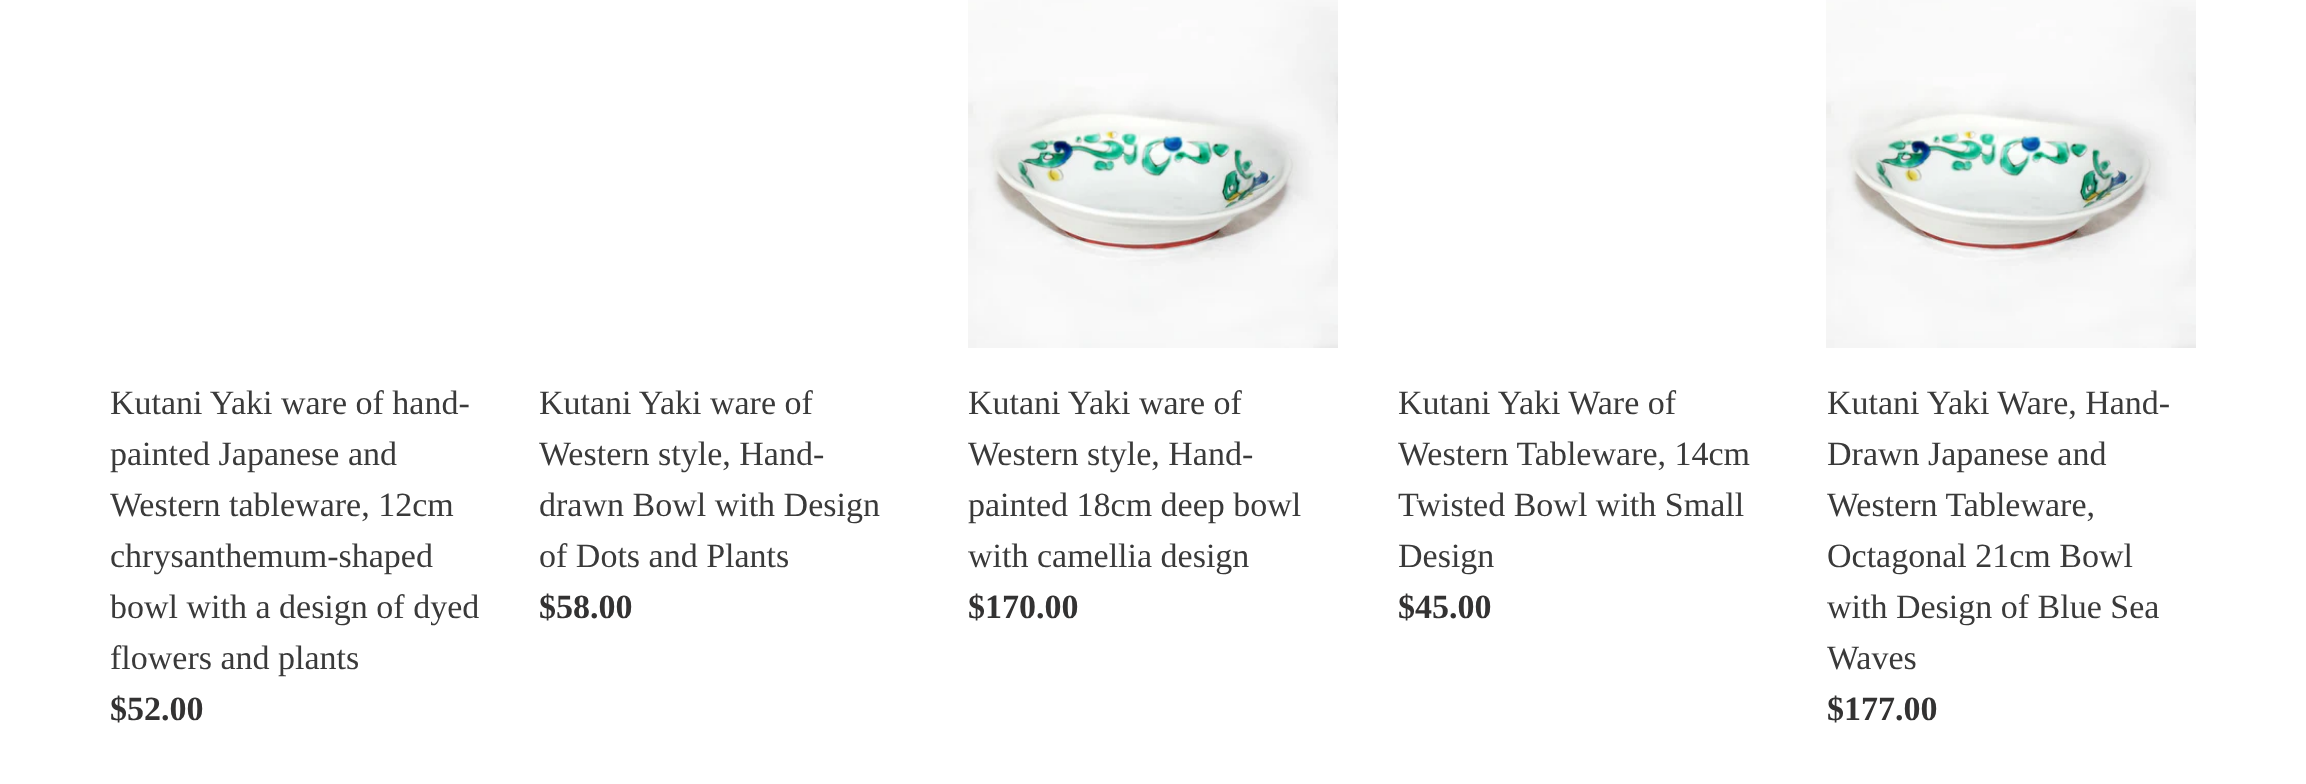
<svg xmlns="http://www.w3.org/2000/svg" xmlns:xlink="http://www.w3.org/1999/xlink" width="2306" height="784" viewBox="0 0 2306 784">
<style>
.cls-1{font:34px Liberation Serif;fill:#3a3a3a}
.cls-2{font:bold 34px Liberation Serif;fill:#333232}
</style>
<rect width="100%" height="100%" fill="#ffffff"/>
<image xlink:href="image0.png" x="968" y="0" width="370" height="348"/>
<image xlink:href="image1.png" x="1826" y="0" width="370" height="348"/>
<text class="cls-1"><tspan x="110" y="414">Kutani Yaki ware of hand-</tspan><tspan x="110" y="465">painted Japanese and</tspan><tspan x="110" y="516">Western tableware, 12cm</tspan><tspan x="110" y="567">chrysanthemum-shaped</tspan><tspan x="110" y="618">bowl with a design of dyed</tspan><tspan x="110" y="669">flowers and plants</tspan></text>
<text class="cls-2" x="110" y="720">$52.00</text>
<text class="cls-1"><tspan x="539" y="414">Kutani Yaki ware of</tspan><tspan x="539" y="465">Western style, Hand-</tspan><tspan x="539" y="516">drawn Bowl with Design</tspan><tspan x="539" y="567">of Dots and Plants</tspan></text>
<text class="cls-2" x="539" y="618">$58.00</text>
<text class="cls-1"><tspan x="968" y="414">Kutani Yaki ware of</tspan><tspan x="968" y="465">Western style, Hand-</tspan><tspan x="968" y="516">painted 18cm deep bowl</tspan><tspan x="968" y="567">with camellia design</tspan></text>
<text class="cls-2" x="968" y="618">$170.00</text>
<text class="cls-1"><tspan x="1398" y="414">Kutani Yaki Ware of</tspan><tspan x="1398" y="465">Western Tableware, 14cm</tspan><tspan x="1398" y="516">Twisted Bowl with Small</tspan><tspan x="1398" y="567">Design</tspan></text>
<text class="cls-2" x="1398" y="618">$45.00</text>
<text class="cls-1"><tspan x="1827" y="414">Kutani Yaki Ware, Hand-</tspan><tspan x="1827" y="465">Drawn Japanese and</tspan><tspan x="1827" y="516">Western Tableware,</tspan><tspan x="1827" y="567">Octagonal 21cm Bowl</tspan><tspan x="1827" y="618">with Design of Blue Sea</tspan><tspan x="1827" y="669">Waves</tspan></text>
<text class="cls-2" x="1827" y="720">$177.00</text>
</svg>
